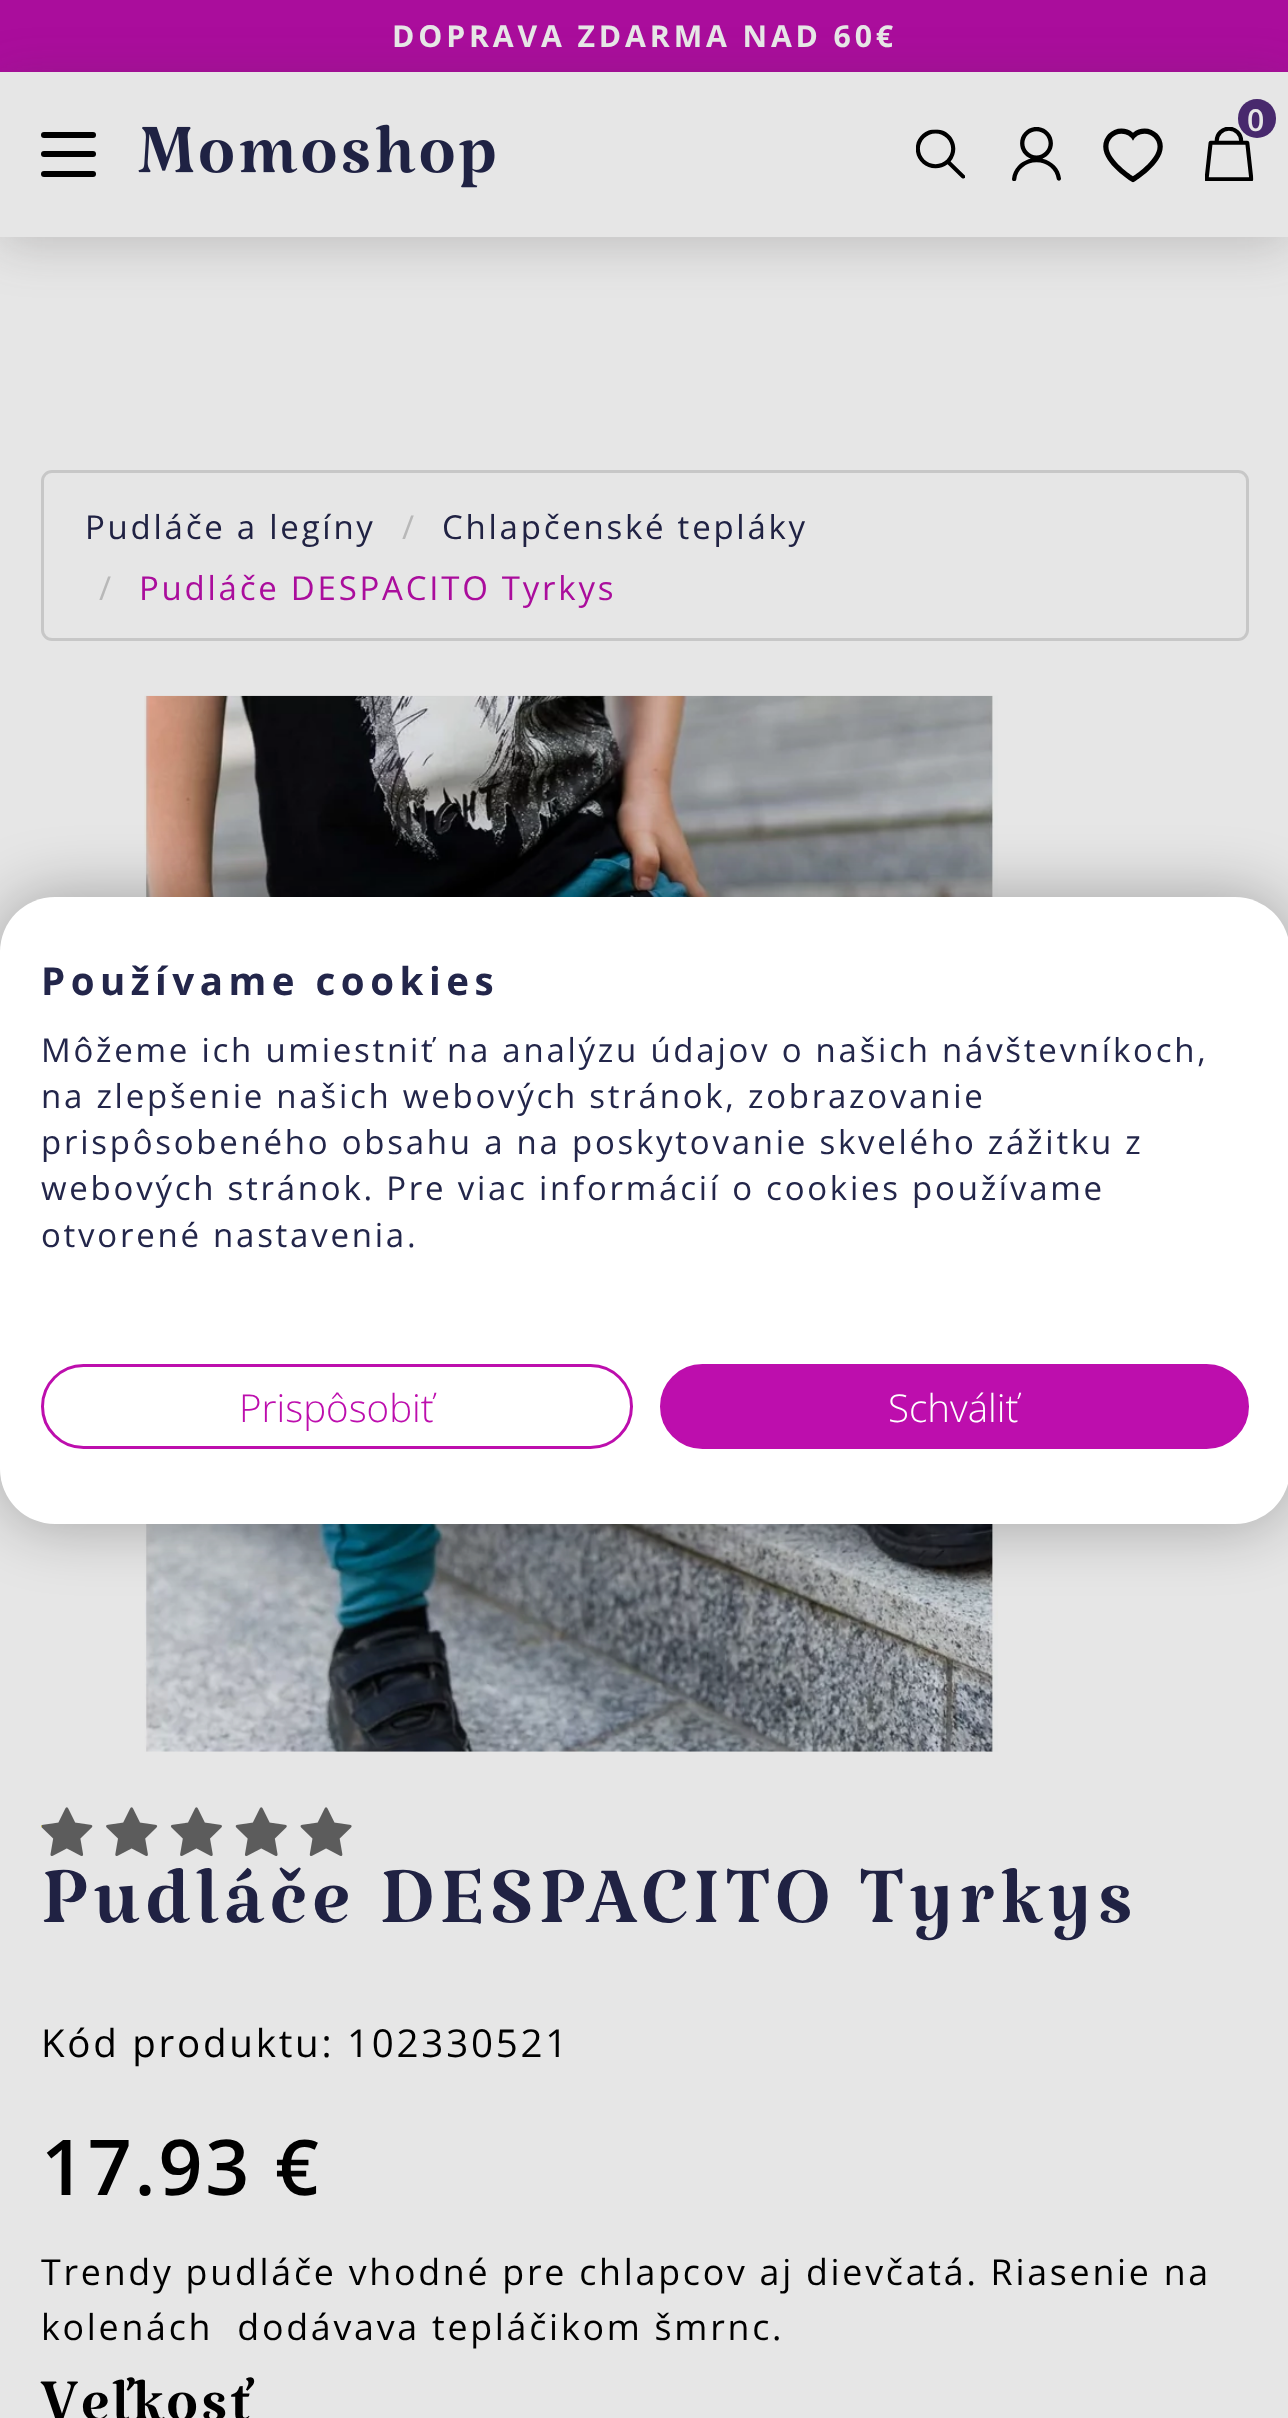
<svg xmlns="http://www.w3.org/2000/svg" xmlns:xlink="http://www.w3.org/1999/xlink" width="1288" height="2418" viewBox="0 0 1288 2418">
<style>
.cls-1{font:bold 30.25px Open Sans;letter-spacing:3.85px;fill:#e6e6e6}
.cls-2{font:600 30.25px Open Sans;letter-spacing:2.75px;fill:#e6e6e6}
.cls-3{font:33px Open Sans;letter-spacing:2.75px;fill:#202243}
.cls-4{font:33px Open Sans;letter-spacing:2.75px;fill:#b8b8b8}
.cls-5{font:33px Open Sans;letter-spacing:2.75px;fill:#aa0d9c}
.cls-6{font:110px Katibeh;letter-spacing:5.5px;fill:#202243}
.cls-7{font:38.5px Open Sans;letter-spacing:2.75px;fill:#000000}
.cls-8{font:600 77px Open Sans;letter-spacing:2.75px;fill:#000000}
.cls-9{font:35.75px Open Sans;letter-spacing:2.75px;fill:#000000}
.cls-10{font:82.5px Katibeh;letter-spacing:2.75px;fill:#000000}
.cls-11{font:bold 38.5px Open Sans;letter-spacing:5.5px;fill:#23264a}
.cls-12{font:33px Open Sans;letter-spacing:2.75px;fill:#23264a}
.cls-13{font:300 38.5px Open Sans;fill:#bd0ead}
.cls-14{font:300 38.5px Open Sans;fill:#ffffff}
</style>
<rect width="100%" height="100%" fill="#e6e6e6"/>
<rect fill="#aa0d9c" x="0" y="0" width="1288" height="72"/>
<rect fill="#3f3e3e" fill-opacity="0.23" filter="blur(25px)" x="0" y="80" width="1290" height="165"/>
<rect fill="#e6e6e6" x="0" y="72" width="1288" height="165"/>
<image xlink:href="image0.png" x="1205" y="127" width="49" height="54"/>
<rect fill="#48296d" x="1238" y="99" width="38" height="39" rx="19"/>
<image xlink:href="image1.png" x="916" y="129" width="49" height="50"/>
<image xlink:href="image2.png" x="1012" y="127" width="49" height="54"/>
<image xlink:href="image3.png" x="1103" y="128" width="60" height="55"/>
<rect fill="#000000" x="41" y="132" width="55" height="6" rx="3"/>
<rect fill="#000000" x="41" y="151" width="55" height="6" rx="3"/>
<rect fill="#000000" x="41" y="171" width="55" height="6" rx="3"/>
<image xlink:href="image4.png" x="138" y="124" width="357" height="64"/>
<rect fill="none" stroke="#c7c7c7" stroke-width="3" x="42.5" y="471.5" width="1205" height="168" rx="9.5"/>
<image xlink:href="image5.png" x="144" y="695" width="854" height="1057"/>
<image xlink:href="image6.png" x="41" y="1807" width="311" height="49"/>
<image xlink:href="image7.png" x="41" y="1825" width="1" height="3"/>
<rect fill="#000000" fill-opacity="0.3" filter="blur(33px)" x="0" y="897" width="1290" height="627" rx="55"/>
<rect fill="#ffffff" x="0" y="897" width="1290" height="627" rx="55"/>
<rect fill="none" stroke="#bd0ead" stroke-width="3" x="42.5" y="1365.5" width="589" height="82" rx="41"/>
<rect fill="#bd0ead" stroke="#bd0ead" stroke-width="3" x="661.5" y="1365.5" width="586" height="82" rx="41"/>
<text class="cls-1" x="392" y="47">DOPRAVA ZDARMA NAD 60€</text>
<text class="cls-2" x="1247" y="131">0</text>
<text class="cls-3" x="85" y="539">Pudláče a legíny</text>
<text class="cls-4" x="402" y="539">/</text>
<text class="cls-3" x="442" y="539">Chlapčenské tepláky</text>
<text class="cls-4" x="99" y="600">/</text>
<text class="cls-5" x="139" y="600">Pudláče DESPACITO Tyrkys</text>
<text class="cls-6" x="41" y="1922">Pudláče DESPACITO Tyrkys</text>
<text class="cls-7" x="41" y="2057">Kód produktu: 102330521</text>
<text class="cls-8" x="41" y="2195">17.93 €</text>
<text class="cls-9" xml:space="preserve"><tspan x="41" y="2285">Trendy pudláče vhodné pre chlapcov aj dievčatá. Riasenie na</tspan><tspan x="41" y="2340">kolenách  dodávava tepláčikom šmrnc.</tspan></text>
<text class="cls-10" x="41" y="2420">Veľkosť</text>
<text class="cls-11" x="41" y="995">Používame cookies</text>
<text class="cls-12"><tspan x="41" y="1062">Môžeme ich umiestniť na analýzu údajov o našich návštevníkoch,</tspan><tspan x="41" y="1108">na zlepšenie našich webových stránok, zobrazovanie</tspan><tspan x="41" y="1154">prispôsobeného obsahu a na poskytovanie skvelého zážitku z</tspan><tspan x="41" y="1200">webových stránok. Pre viac informácií o cookies používame</tspan><tspan x="41" y="1247">otvorené nastavenia.</tspan></text>
<text class="cls-13" x="239" y="1422">Prispôsobiť</text>
<text class="cls-14" x="888" y="1422">Schváliť</text>
</svg>
